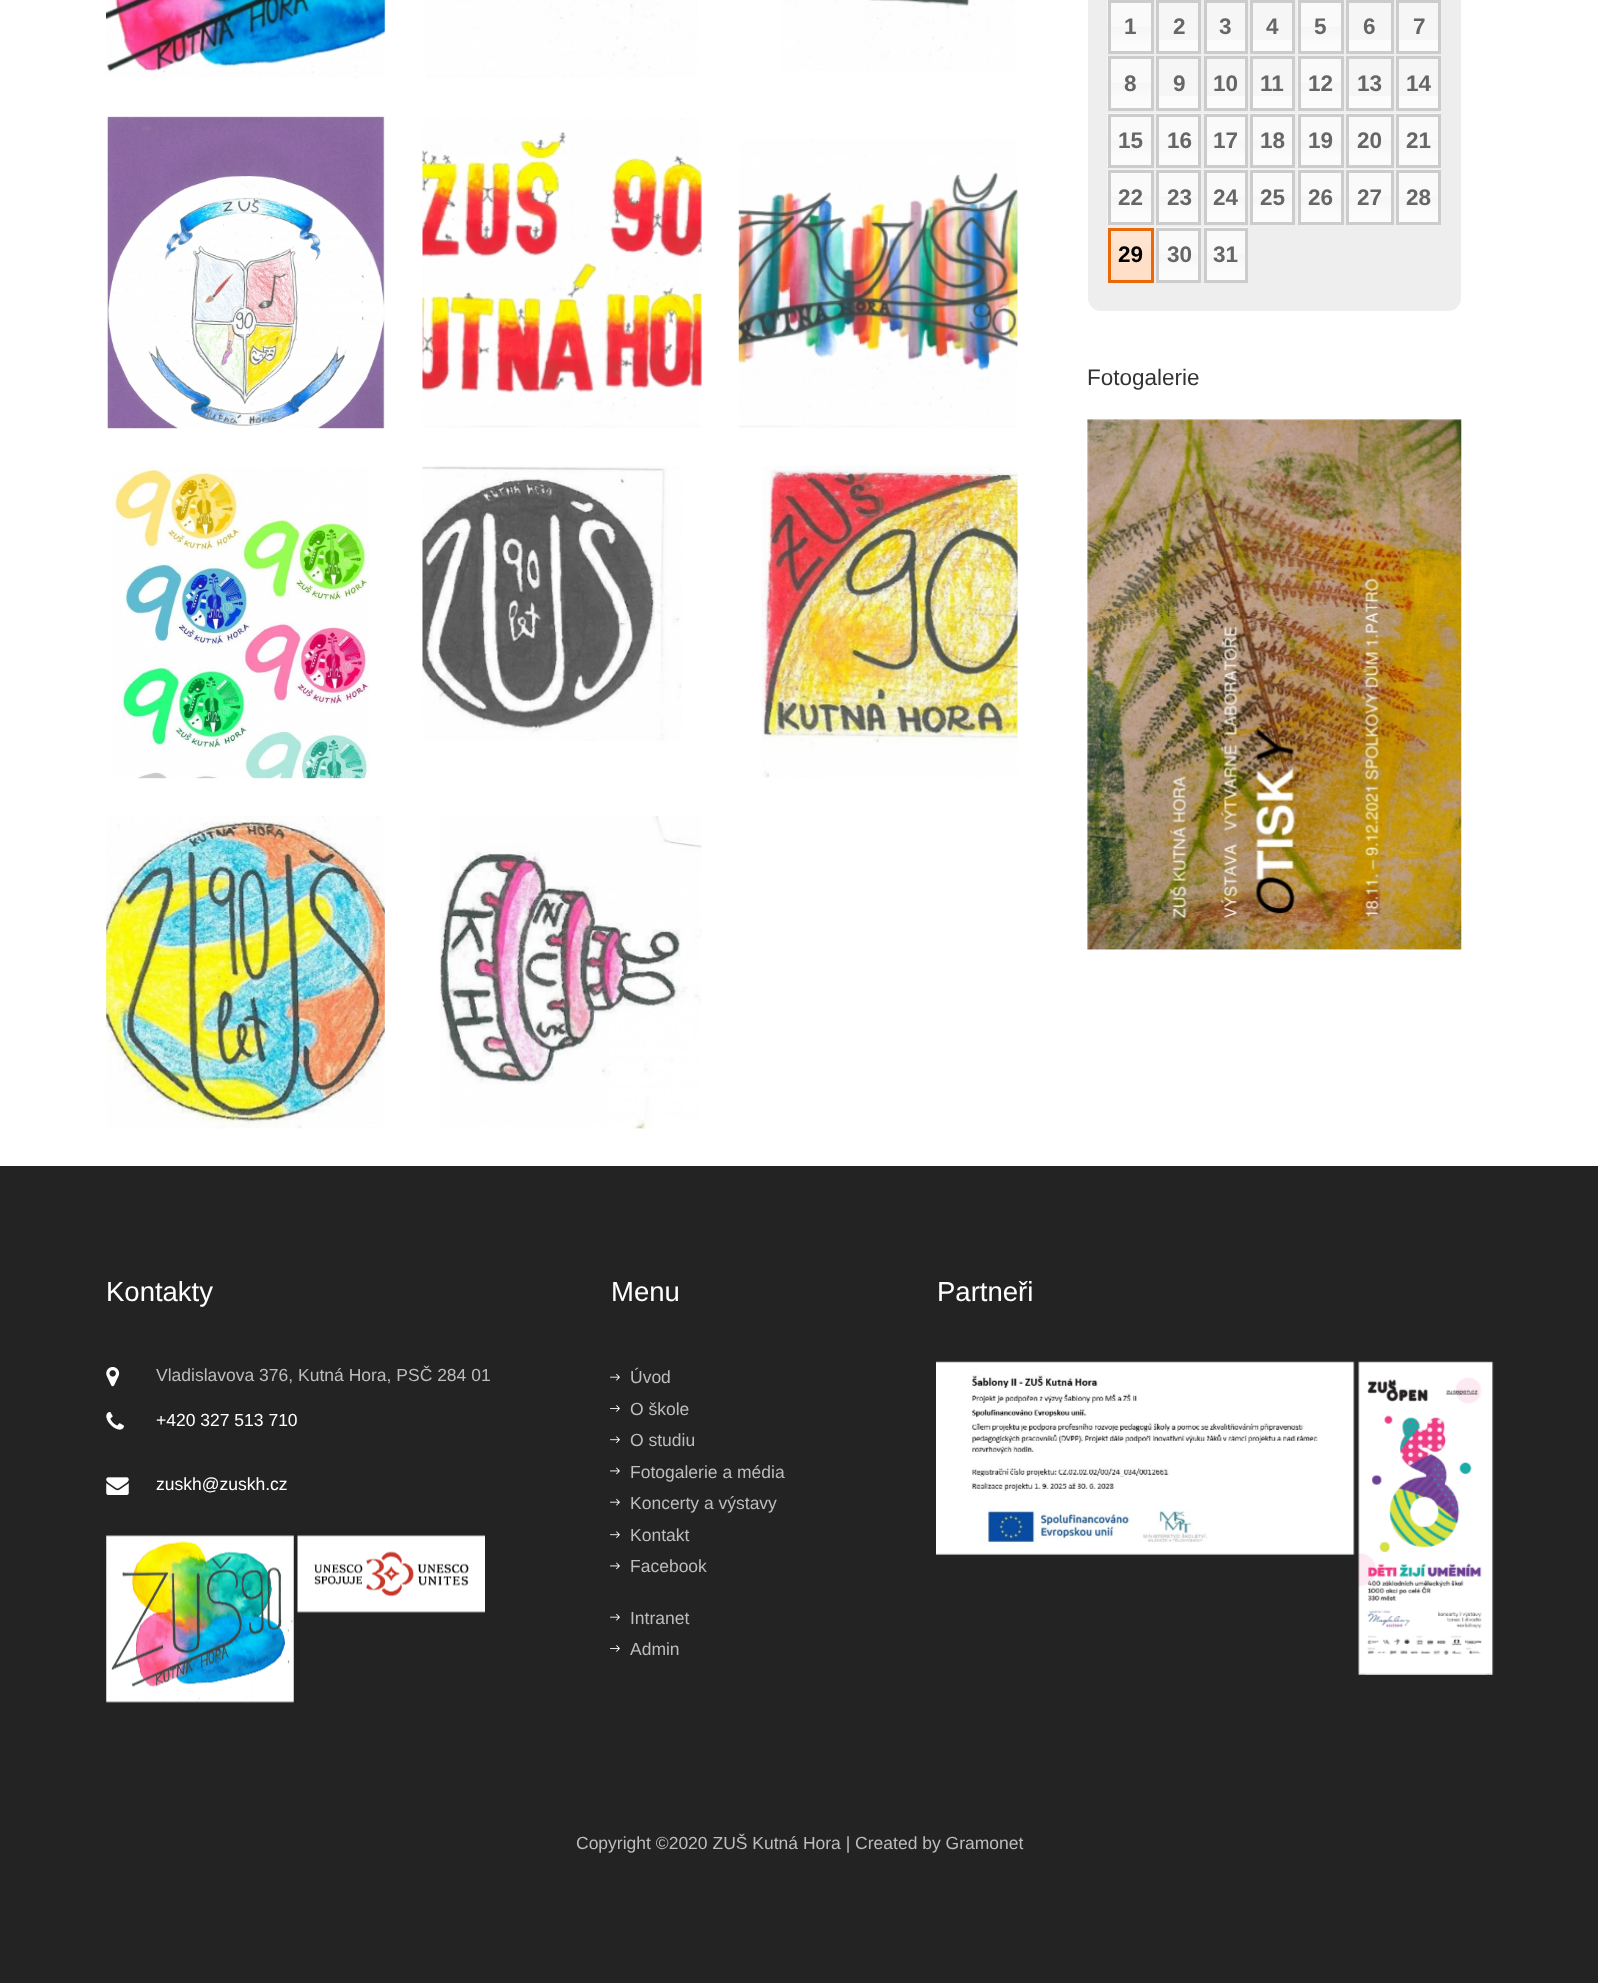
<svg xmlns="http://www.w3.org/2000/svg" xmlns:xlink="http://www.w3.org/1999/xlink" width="1598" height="1983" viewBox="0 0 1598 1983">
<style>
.cls-1{font:bold 22.5px Liberation Sans;fill:#666666}
.cls-2{font:bold 22.5px Liberation Sans;fill:#000000}
.cls-3{font:22.5px Liberation Sans;fill:#333333}
.cls-4{font:27.5px Liberation Sans;fill:#ffffff}
.cls-5{font:17.5px Liberation Sans;fill:#bdbdbd}
.cls-6{font:17.5px Liberation Sans;fill:#ffffff}
</style>
<rect width="100%" height="100%" fill="#ffffff"/>
<image xlink:href="image0.png" x="106" y="0" width="279" height="79"/>
<image xlink:href="image1.png" x="425" y="0" width="273" height="78"/>
<image xlink:href="image2.png" x="781" y="0" width="234" height="71"/>
<image xlink:href="image3.png" x="107" y="116" width="278" height="313"/>
<image xlink:href="image4.png" x="422" y="117" width="280" height="311"/>
<image xlink:href="image5.png" x="738" y="139" width="280" height="289"/>
<image xlink:href="image6.png" x="112" y="467" width="258" height="312"/>
<image xlink:href="image7.png" x="422" y="466" width="260" height="275"/>
<image xlink:href="image8.png" x="761" y="466" width="257" height="312"/>
<image xlink:href="image9.png" x="106" y="816" width="279" height="313"/>
<image xlink:href="image10.png" x="439" y="815" width="263" height="314"/>
<rect fill="#eeeeee" x="1088" y="-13" width="373" height="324" rx="13"/>
<image xlink:href="image11.png" x="1107" y="0" width="44" height="53"/>
<rect fill="none" stroke="#cccccc" stroke-width="3" x="1109.5" y="1.5" width="43" height="51"/>
<rect fill="#f6f6f6" x="1159" y="3" width="39" height="37"/>
<rect fill="#fcfcfc" x="1159" y="40" width="39" height="11"/>
<rect fill="none" stroke="#cccccc" stroke-width="3" x="1157.5" y="1.5" width="42" height="51"/>
<rect fill="#f6f6f6" x="1207" y="3" width="38" height="37"/>
<rect fill="#fcfcfc" x="1207" y="40" width="38" height="11"/>
<rect fill="none" stroke="#cccccc" stroke-width="3" x="1205.5" y="1.5" width="41" height="51"/>
<rect fill="#f6f6f6" x="1253" y="3" width="39" height="37"/>
<rect fill="#fcfcfc" x="1253" y="40" width="39" height="11"/>
<rect fill="none" stroke="#cccccc" stroke-width="3" x="1251.5" y="1.5" width="42" height="51"/>
<image xlink:href="image11.png" x="1297" y="0" width="44" height="53"/>
<rect fill="none" stroke="#cccccc" stroke-width="3" x="1299.5" y="1.5" width="43" height="51"/>
<rect fill="#f6f6f6" x="1349" y="3" width="42" height="37"/>
<rect fill="#fcfcfc" x="1349" y="40" width="42" height="11"/>
<rect fill="none" stroke="#cccccc" stroke-width="3" x="1347.5" y="1.5" width="45" height="51"/>
<rect fill="#f6f6f6" x="1399" y="3" width="39" height="37"/>
<rect fill="#fcfcfc" x="1399" y="40" width="39" height="11"/>
<rect fill="none" stroke="#cccccc" stroke-width="3" x="1397.5" y="1.5" width="42" height="51"/>
<image xlink:href="image12.png" x="1107" y="56" width="44" height="55"/>
<rect fill="none" stroke="#cccccc" stroke-width="3" x="1109.5" y="57.5" width="43" height="52"/>
<rect fill="#f6f6f6" x="1159" y="59" width="39" height="37"/>
<rect fill="#fcfcfc" x="1159" y="96" width="39" height="12"/>
<rect fill="none" stroke="#cccccc" stroke-width="3" x="1157.5" y="57.5" width="42" height="52"/>
<rect fill="#f6f6f6" x="1207" y="59" width="38" height="37"/>
<rect fill="#fcfcfc" x="1207" y="96" width="38" height="12"/>
<rect fill="none" stroke="#cccccc" stroke-width="3" x="1205.5" y="57.5" width="41" height="52"/>
<rect fill="#f6f6f6" x="1253" y="59" width="39" height="37"/>
<rect fill="#fcfcfc" x="1253" y="96" width="39" height="12"/>
<rect fill="none" stroke="#cccccc" stroke-width="3" x="1251.5" y="57.5" width="42" height="52"/>
<image xlink:href="image12.png" x="1297" y="56" width="44" height="55"/>
<rect fill="none" stroke="#cccccc" stroke-width="3" x="1299.5" y="57.5" width="43" height="52"/>
<rect fill="#f6f6f6" x="1349" y="59" width="42" height="37"/>
<rect fill="#fcfcfc" x="1349" y="96" width="42" height="12"/>
<rect fill="none" stroke="#cccccc" stroke-width="3" x="1347.5" y="57.5" width="45" height="52"/>
<rect fill="#f6f6f6" x="1399" y="59" width="39" height="37"/>
<rect fill="#fcfcfc" x="1399" y="96" width="39" height="12"/>
<rect fill="none" stroke="#cccccc" stroke-width="3" x="1397.5" y="57.5" width="42" height="52"/>
<image xlink:href="image13.png" x="1107" y="113" width="47" height="54"/>
<rect fill="none" stroke="#cccccc" stroke-width="3" x="1109.5" y="115.5" width="43" height="51"/>
<image xlink:href="image14.png" x="1156" y="113" width="45" height="52"/>
<rect fill="none" stroke="#cccccc" stroke-width="3" x="1157.5" y="115.5" width="42" height="51"/>
<image xlink:href="image15.png" x="1204" y="113" width="43" height="52"/>
<rect fill="none" stroke="#cccccc" stroke-width="3" x="1205.5" y="115.5" width="41" height="51"/>
<image xlink:href="image16.png" x="1250" y="113" width="45" height="52"/>
<rect fill="none" stroke="#cccccc" stroke-width="3" x="1251.5" y="115.5" width="42" height="51"/>
<image xlink:href="image13.png" x="1297" y="113" width="47" height="54"/>
<rect fill="none" stroke="#cccccc" stroke-width="3" x="1299.5" y="115.5" width="43" height="51"/>
<image xlink:href="image17.png" x="1346" y="113" width="48" height="52"/>
<rect fill="none" stroke="#cccccc" stroke-width="3" x="1347.5" y="115.5" width="45" height="51"/>
<image xlink:href="image14.png" x="1396" y="113" width="45" height="52"/>
<rect fill="none" stroke="#cccccc" stroke-width="3" x="1397.5" y="115.5" width="42" height="51"/>
<image xlink:href="image18.png" x="1107" y="169" width="47" height="55"/>
<rect fill="none" stroke="#cccccc" stroke-width="3" x="1109.5" y="171.5" width="43" height="52"/>
<image xlink:href="image19.png" x="1156" y="169" width="45" height="53"/>
<rect fill="none" stroke="#cccccc" stroke-width="3" x="1157.5" y="171.5" width="42" height="52"/>
<image xlink:href="image20.png" x="1204" y="169" width="43" height="53"/>
<rect fill="none" stroke="#cccccc" stroke-width="3" x="1205.5" y="171.5" width="41" height="52"/>
<image xlink:href="image21.png" x="1250" y="169" width="45" height="53"/>
<rect fill="none" stroke="#cccccc" stroke-width="3" x="1251.5" y="171.5" width="42" height="52"/>
<image xlink:href="image18.png" x="1297" y="169" width="47" height="55"/>
<rect fill="none" stroke="#cccccc" stroke-width="3" x="1299.5" y="171.5" width="43" height="52"/>
<image xlink:href="image22.png" x="1346" y="169" width="48" height="53"/>
<rect fill="none" stroke="#cccccc" stroke-width="3" x="1347.5" y="171.5" width="45" height="52"/>
<image xlink:href="image19.png" x="1396" y="169" width="45" height="53"/>
<rect fill="none" stroke="#cccccc" stroke-width="3" x="1397.5" y="171.5" width="42" height="52"/>
<rect fill="#ffe4d0" x="1111" y="231" width="40" height="49"/>
<image xlink:href="image23.png" x="1107" y="227" width="47" height="55"/>
<rect fill="none" stroke="#ec6707" stroke-width="3" x="1109.5" y="229.5" width="43" height="52"/>
<image xlink:href="image24.png" x="1156" y="227" width="45" height="53"/>
<rect fill="none" stroke="#cccccc" stroke-width="3" x="1157.5" y="229.5" width="42" height="52"/>
<image xlink:href="image25.png" x="1204" y="227" width="44" height="53"/>
<rect fill="none" stroke="#cccccc" stroke-width="3" x="1205.5" y="229.5" width="41" height="52"/>
<image xlink:href="image26.png" x="1087" y="419" width="375" height="531"/>
<rect fill="#232323" x="0" y="1166" width="1598" height="817"/>
<image xlink:href="image27.png" x="106" y="1367" width="14" height="20"/>
<image xlink:href="image28.png" x="106" y="1412" width="18" height="18"/>
<image xlink:href="image29.png" x="106" y="1477" width="23" height="18"/>
<image xlink:href="image30.png" x="106" y="1535" width="188" height="168"/>
<image xlink:href="image31.png" x="297" y="1535" width="188" height="78"/>
<image xlink:href="image32.png" x="610" y="1373" width="10" height="8"/>
<image xlink:href="image33.png" x="610" y="1405" width="10" height="7"/>
<image xlink:href="image34.png" x="610" y="1436" width="10" height="7"/>
<image xlink:href="image35.png" x="610" y="1467" width="10" height="8"/>
<image xlink:href="image32.png" x="610" y="1498" width="10" height="8"/>
<image xlink:href="image34.png" x="610" y="1531" width="10" height="7"/>
<image xlink:href="image35.png" x="610" y="1562" width="10" height="8"/>
<image xlink:href="image32.png" x="610" y="1613" width="10" height="8"/>
<image xlink:href="image33.png" x="610" y="1645" width="10" height="7"/>
<image xlink:href="image36.png" x="936" y="1361" width="419" height="194"/>
<image xlink:href="image37.png" x="1358" y="1361" width="136" height="314"/>
<text class="cls-1" x="1124" y="34">1</text>
<text class="cls-1" x="1173" y="34">2</text>
<text class="cls-1" x="1219" y="34">3</text>
<text class="cls-1" x="1266" y="34">4</text>
<text class="cls-1" x="1314" y="34">5</text>
<text class="cls-1" x="1363" y="34">6</text>
<text class="cls-1" x="1413" y="34">7</text>
<text class="cls-1" x="1124" y="91">8</text>
<text class="cls-1" x="1173" y="91">9</text>
<text class="cls-1" x="1213" y="91">10</text>
<text class="cls-1" x="1260" y="91">11</text>
<text class="cls-1" x="1308" y="91">12</text>
<text class="cls-1" x="1357" y="91">13</text>
<text class="cls-1" x="1406" y="91">14</text>
<text class="cls-1" x="1118" y="148">15</text>
<text class="cls-1" x="1167" y="148">16</text>
<text class="cls-1" x="1213" y="148">17</text>
<text class="cls-1" x="1260" y="148">18</text>
<text class="cls-1" x="1308" y="148">19</text>
<text class="cls-1" x="1357" y="148">20</text>
<text class="cls-1" x="1406" y="148">21</text>
<text class="cls-1" x="1118" y="205">22</text>
<text class="cls-1" x="1167" y="205">23</text>
<text class="cls-1" x="1213" y="205">24</text>
<text class="cls-1" x="1260" y="205">25</text>
<text class="cls-1" x="1308" y="205">26</text>
<text class="cls-1" x="1357" y="205">27</text>
<text class="cls-1" x="1406" y="205">28</text>
<text class="cls-2" x="1118" y="262">29</text>
<text class="cls-1" x="1167" y="262">30</text>
<text class="cls-1" x="1213" y="262">31</text>
<text class="cls-3" x="1087" y="385">Fotogalerie</text>
<text class="cls-4" x="106" y="1301">Kontakty</text>
<text class="cls-5" x="156" y="1381">Vladislavova 376, Kutná Hora, PSČ 284 01</text>
<text class="cls-6" x="156" y="1426">+420 327 513 710</text>
<text class="cls-6" x="156" y="1490">zuskh@zuskh.cz</text>
<text class="cls-4" x="611" y="1301">Menu</text>
<text class="cls-5"><tspan x="630" y="1383">Úvod</tspan><tspan x="630" y="1415">O škole</tspan><tspan x="630" y="1446">O studiu</tspan><tspan x="630" y="1478">Fotogalerie a média</tspan><tspan x="630" y="1509">Koncerty a výstavy</tspan><tspan x="630" y="1541">Kontakt</tspan><tspan x="630" y="1572">Facebook</tspan></text>
<text class="cls-5"><tspan x="630" y="1624">Intranet</tspan><tspan x="630" y="1655">Admin</tspan></text>
<text class="cls-4" x="937" y="1301">Partneři</text>
<text class="cls-5" x="576" y="1849">Copyright ©2020 ZUŠ Kutná Hora | Created by Gramonet</text>
</svg>
